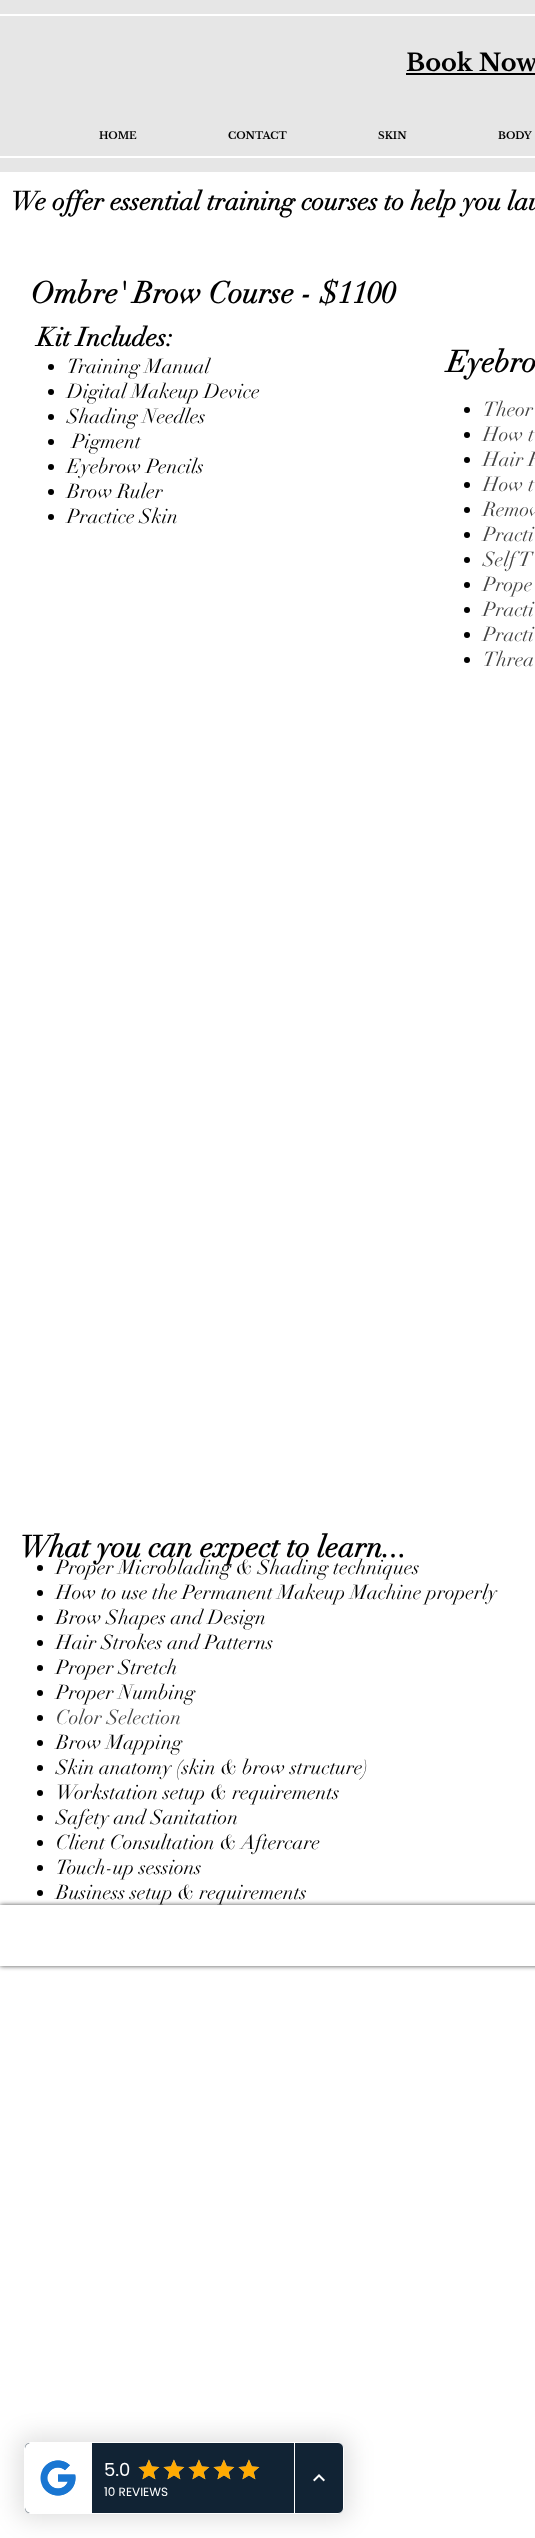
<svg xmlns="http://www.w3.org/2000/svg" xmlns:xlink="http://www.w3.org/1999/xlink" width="535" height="2538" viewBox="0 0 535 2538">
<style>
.cls-1{font:bold 24px Libre Baskerville;fill:#000000}
.cls-2{font:bold 10px Libre Baskerville;fill:#000000}
.cls-3{font:bold 26px didot;fill:#000000}
.cls-4{font:bold 30px didot;fill:#000000}
.cls-5{font:20px didot;fill:#000000}
.cls-6{font:20px didot;fill:#434343}
.cls-7{font:18px Poppins;fill:#ffffff}
.cls-8{font:12px Poppins;fill:#ffffff}
</style>
<defs>
<clipPath id="clip1"><path d="M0 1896H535V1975H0ZM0 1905H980V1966H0Z" clip-rule="evenodd"/></clipPath>
</defs>
<rect width="100%" height="100%" fill="#ffffff"/>
<rect fill="#e6e6e6" x="0" y="0" width="535" height="172"/>
<rect fill="#ffffff" x="0" y="14" width="535" height="2"/>
<rect fill="#ffffff" x="0" y="156" width="535" height="2"/>
<rect fill="#000000" x="406" y="73" width="129" height="2"/>
<circle fill="#000000" cx="51" cy="367" r="3"/>
<circle fill="#000000" cx="51" cy="392" r="3"/>
<circle fill="#000000" cx="51" cy="417" r="3"/>
<circle fill="#000000" cx="51" cy="442" r="3"/>
<circle fill="#000000" cx="51" cy="467" r="3"/>
<circle fill="#000000" cx="51" cy="492" r="3"/>
<circle fill="#000000" cx="51" cy="517" r="3"/>
<circle fill="#000000" cx="467" cy="410" r="3"/>
<circle fill="#000000" cx="467" cy="435" r="3"/>
<circle fill="#000000" cx="467" cy="460" r="3"/>
<circle fill="#000000" cx="467" cy="485" r="3"/>
<circle fill="#000000" cx="467" cy="510" r="3"/>
<circle fill="#000000" cx="467" cy="535" r="3"/>
<circle fill="#000000" cx="467" cy="560" r="3"/>
<circle fill="#000000" cx="467" cy="585" r="3"/>
<circle fill="#000000" cx="467" cy="610" r="3"/>
<circle fill="#000000" cx="467" cy="635" r="3"/>
<circle fill="#000000" cx="467" cy="660" r="3"/>
<circle fill="#000000" cx="40" cy="1568" r="3"/>
<circle fill="#000000" cx="40" cy="1593" r="3"/>
<circle fill="#000000" cx="40" cy="1618" r="3"/>
<circle fill="#000000" cx="40" cy="1643" r="3"/>
<circle fill="#000000" cx="40" cy="1668" r="3"/>
<circle fill="#000000" cx="40" cy="1693" r="3"/>
<circle fill="#000000" cx="40" cy="1718" r="3"/>
<circle fill="#000000" cx="40" cy="1743" r="3"/>
<circle fill="#000000" cx="40" cy="1768" r="3"/>
<circle fill="#000000" cx="40" cy="1793" r="3"/>
<circle fill="#000000" cx="40" cy="1818" r="3"/>
<circle fill="#000000" cx="40" cy="1843" r="3"/>
<circle fill="#000000" cx="40" cy="1868" r="3"/>
<circle fill="#000000" cx="40" cy="1893" r="3"/>
<g clip-path="url(#clip1)">
<rect fill="#000000" fill-opacity="0.7" filter="blur(2.5px)" x="0" y="1905" width="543" height="61"/>
</g>
<rect fill="#000000" fill-opacity="0.12" filter="blur(12px)" x="18" y="2436" width="332" height="84" rx="12"/>
<rect fill="#112334" stroke="#ffffff" x="24.5" y="2442.5" width="319" height="71" rx="5.5"/>
<path fill="#ffffff" d="M31 2443H92V2513H31C27.5 2513 25 2510.5 25 2507V2449C25 2445.5 27.5 2443 31 2443Z"/>
<image xlink:href="image0.png" x="40" y="2460" width="36" height="36"/>
<rect fill="#ffffff" x="294" y="2443" width="1" height="70"/>
<image xlink:href="image1.png" x="138" y="2459" width="22" height="21"/>
<image xlink:href="image2.png" x="138" y="2459" width="22" height="21"/>
<image xlink:href="image1.png" x="163" y="2459" width="22" height="21"/>
<image xlink:href="image2.png" x="163" y="2459" width="22" height="21"/>
<image xlink:href="image1.png" x="188" y="2459" width="22" height="21"/>
<image xlink:href="image2.png" x="188" y="2459" width="22" height="21"/>
<image xlink:href="image1.png" x="213" y="2459" width="22" height="21"/>
<image xlink:href="image2.png" x="213" y="2459" width="22" height="21"/>
<image xlink:href="image1.png" x="238" y="2459" width="22" height="21"/>
<image xlink:href="image2.png" x="238" y="2459" width="22" height="21"/>
<image xlink:href="image3.png" x="313" y="2474" width="12" height="8"/>
<text class="cls-1" x="406" y="71">Book Now</text>
<text class="cls-2" x="99" y="139">HOME</text>
<text class="cls-2" x="228" y="139">CONTACT</text>
<text class="cls-2" x="378" y="139">SKIN</text>
<text class="cls-2" x="498" y="139">BODY</text>
<text class="cls-3" x="11" y="210">We offer essential training courses to help you lau</text>
<text class="cls-4" x="31" y="303">Ombre' Brow Course - $1100</text>
<text class="cls-3" x="37" y="346">Kit Includes:</text>
<text class="cls-5"><tspan x="67" y="373">Training Manual</tspan><tspan x="67" y="398">Digital Makeup Device</tspan><tspan x="67" y="423">Shading Needles</tspan></text>
<text class="cls-5" x="72" y="448">Pigment</text>
<text class="cls-5"><tspan x="67" y="473">Eyebrow Pencils</tspan><tspan x="67" y="498">Brow Ruler</tspan><tspan x="67" y="523">Practice Skin</tspan></text>
<text class="cls-4" x="447" y="372">Eyebro</text>
<text class="cls-6"><tspan x="483" y="416">Theor</tspan><tspan x="483" y="441">How t</tspan><tspan x="483" y="466">Hair R</tspan><tspan x="483" y="491">How t</tspan><tspan x="483" y="516">Remov</tspan><tspan x="483" y="541">Practi</tspan><tspan x="483" y="566">Self T</tspan><tspan x="483" y="591">Prope</tspan><tspan x="483" y="616">Practi</tspan><tspan x="483" y="641">Practi</tspan><tspan x="483" y="666">Threa</tspan></text>
<text class="cls-4" x="20" y="1557">What you can expect to learn...</text>
<text class="cls-5"><tspan x="56" y="1574">Proper Microblading &amp; Shading techniques</tspan><tspan x="56" y="1599">How to use the Permanent Makeup Machine properly</tspan><tspan x="56" y="1624">Brow Shapes and Design</tspan><tspan x="56" y="1649">Hair Strokes and Patterns</tspan><tspan x="56" y="1674">Proper Stretch</tspan><tspan x="56" y="1699">Proper Numbing</tspan></text>
<text class="cls-6" x="56" y="1724">Color Selection</text>
<text class="cls-5"><tspan x="56" y="1749">Brow Mapping</tspan><tspan x="56" y="1774">Skin anatomy (skin &amp; brow structure)</tspan><tspan x="56" y="1799">Workstation setup &amp; requirements</tspan><tspan x="56" y="1824">Safety and Sanitation</tspan><tspan x="56" y="1849">Client Consultation &amp; Aftercare</tspan><tspan x="56" y="1874">Touch-up sessions</tspan><tspan x="56" y="1899">Business setup &amp; requirements</tspan></text>
<text class="cls-7" x="104" y="2476">5.0</text>
<text class="cls-8" x="104" y="2496">10 REVIEWS</text>
</svg>
